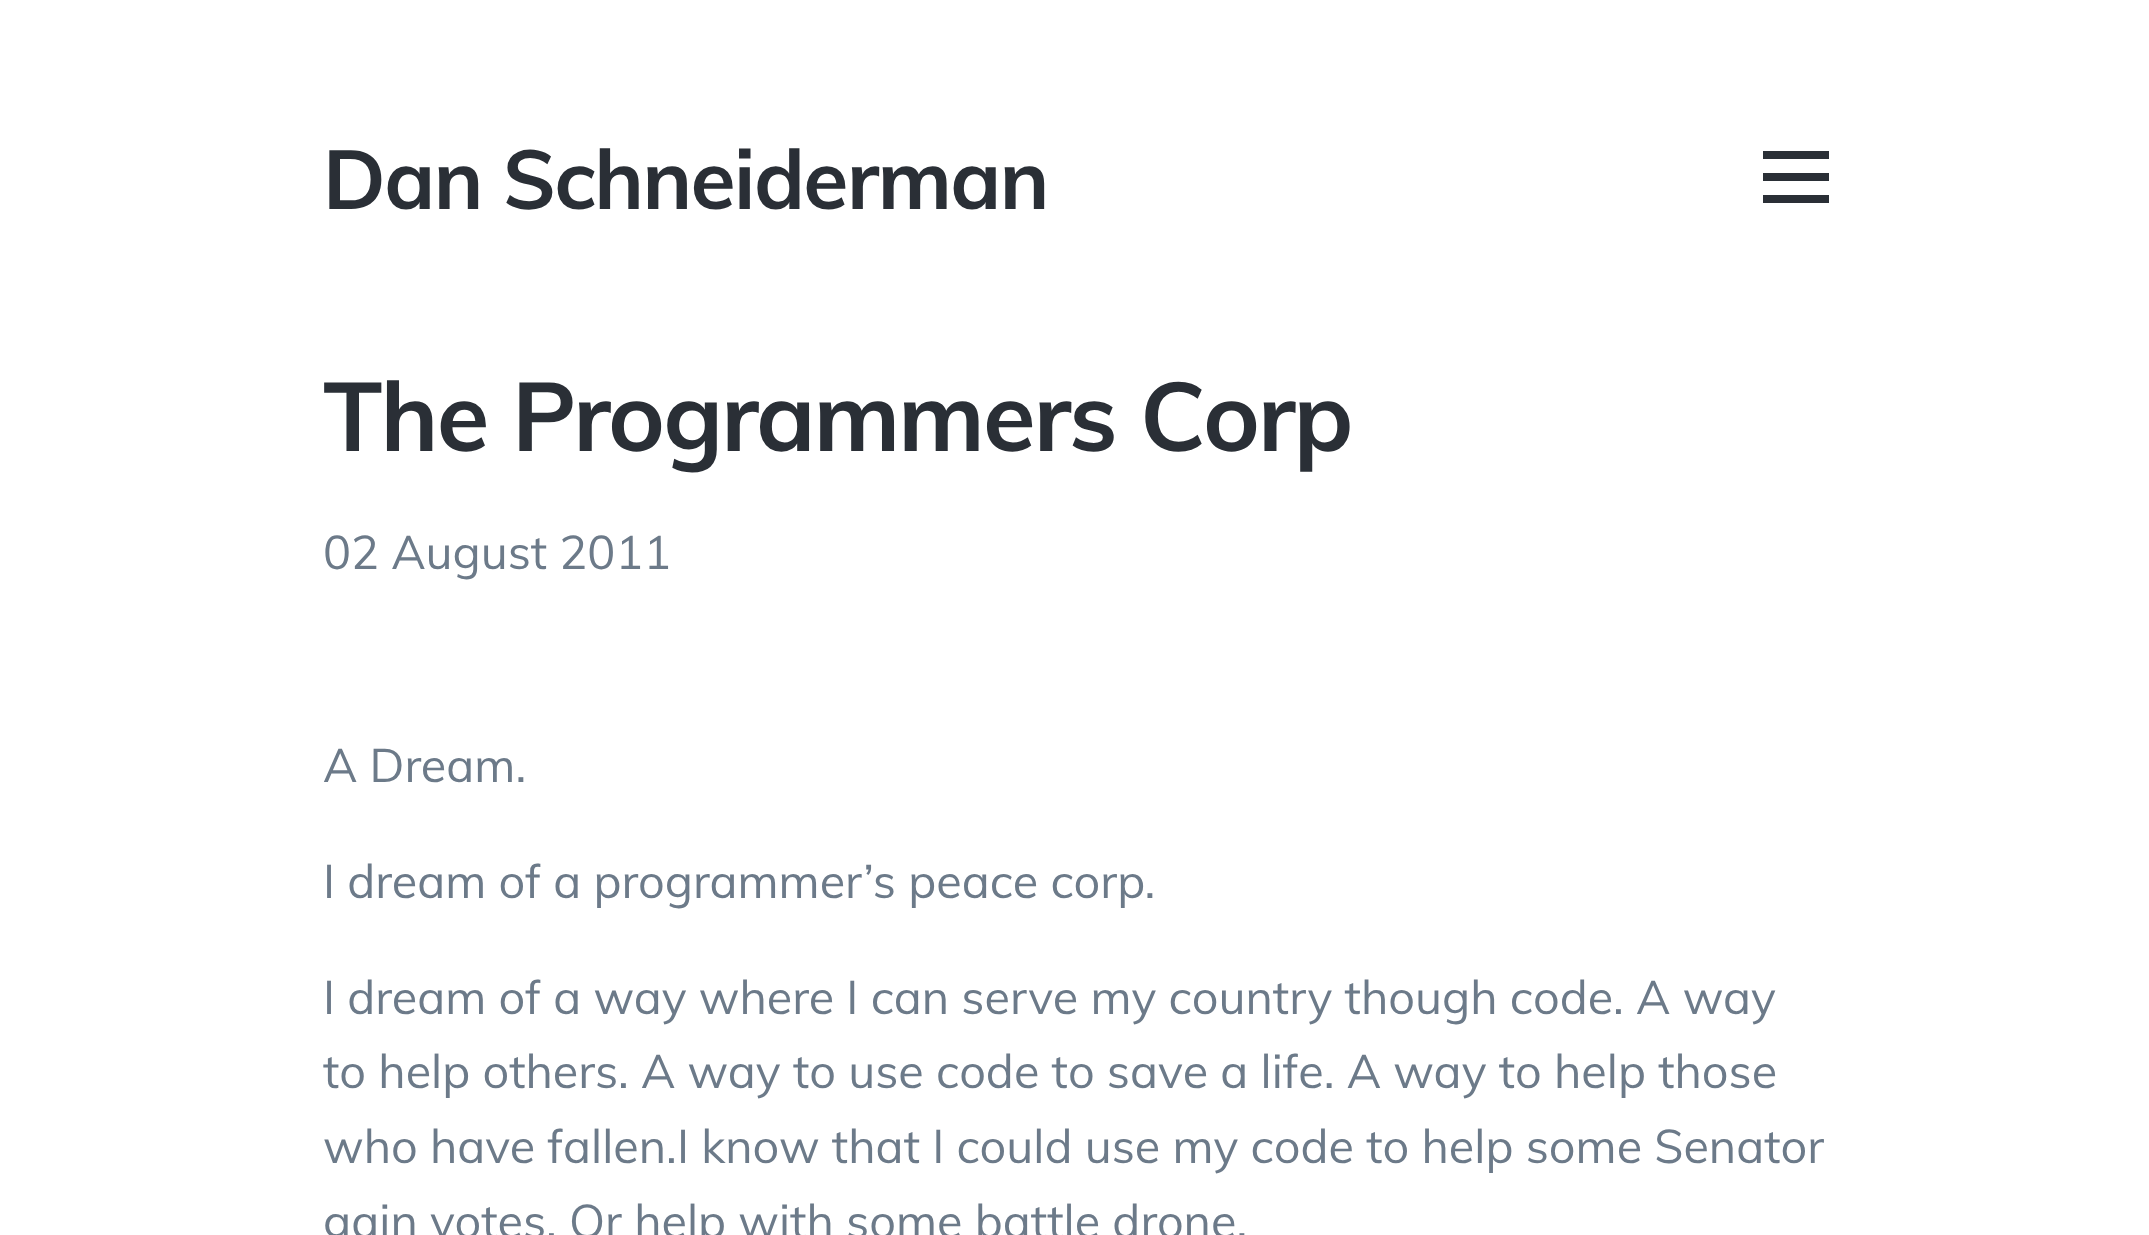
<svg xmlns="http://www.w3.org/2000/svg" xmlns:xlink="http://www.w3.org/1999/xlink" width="2149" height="1235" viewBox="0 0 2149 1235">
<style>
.cls-1{font:bold 82.5px Muli;letter-spacing:-1.6px;fill:#2a2f36}
.cls-2{font:bold 96.25px Muli;letter-spacing:-1.9px;fill:#2a2f36}
.cls-3{font:46.75px Muli;fill:#6c7a89}
</style>
<rect width="100%" height="100%" fill="#ffffff"/>
<rect fill="#2a2f36" x="1763" y="173" width="66" height="8"/>
<rect fill="#2a2f36" x="1763" y="151" width="66" height="8"/>
<rect fill="#2a2f36" x="1763" y="195" width="66" height="8"/>
<text class="cls-1" x="323" y="209">Dan Schneiderman</text>
<text class="cls-2" x="323" y="451">The Programmers Corp</text>
<text class="cls-3" x="323" y="569">02 August 2011</text>
<text class="cls-3" x="323" y="782">A Dream.</text>
<text class="cls-3" x="323" y="898">I dream of a programmer’s peace corp.</text>
<text class="cls-3"><tspan x="323" y="1014">I dream of a way where I can serve my country though code. A way</tspan><tspan x="323" y="1088">to help others. A way to use code to save a life. A way to help those</tspan><tspan x="323" y="1163">who have fallen.I know that I could use my code to help some Senator</tspan><tspan x="323" y="1238">gain votes. Or help with some battle drone.</tspan></text>
</svg>
